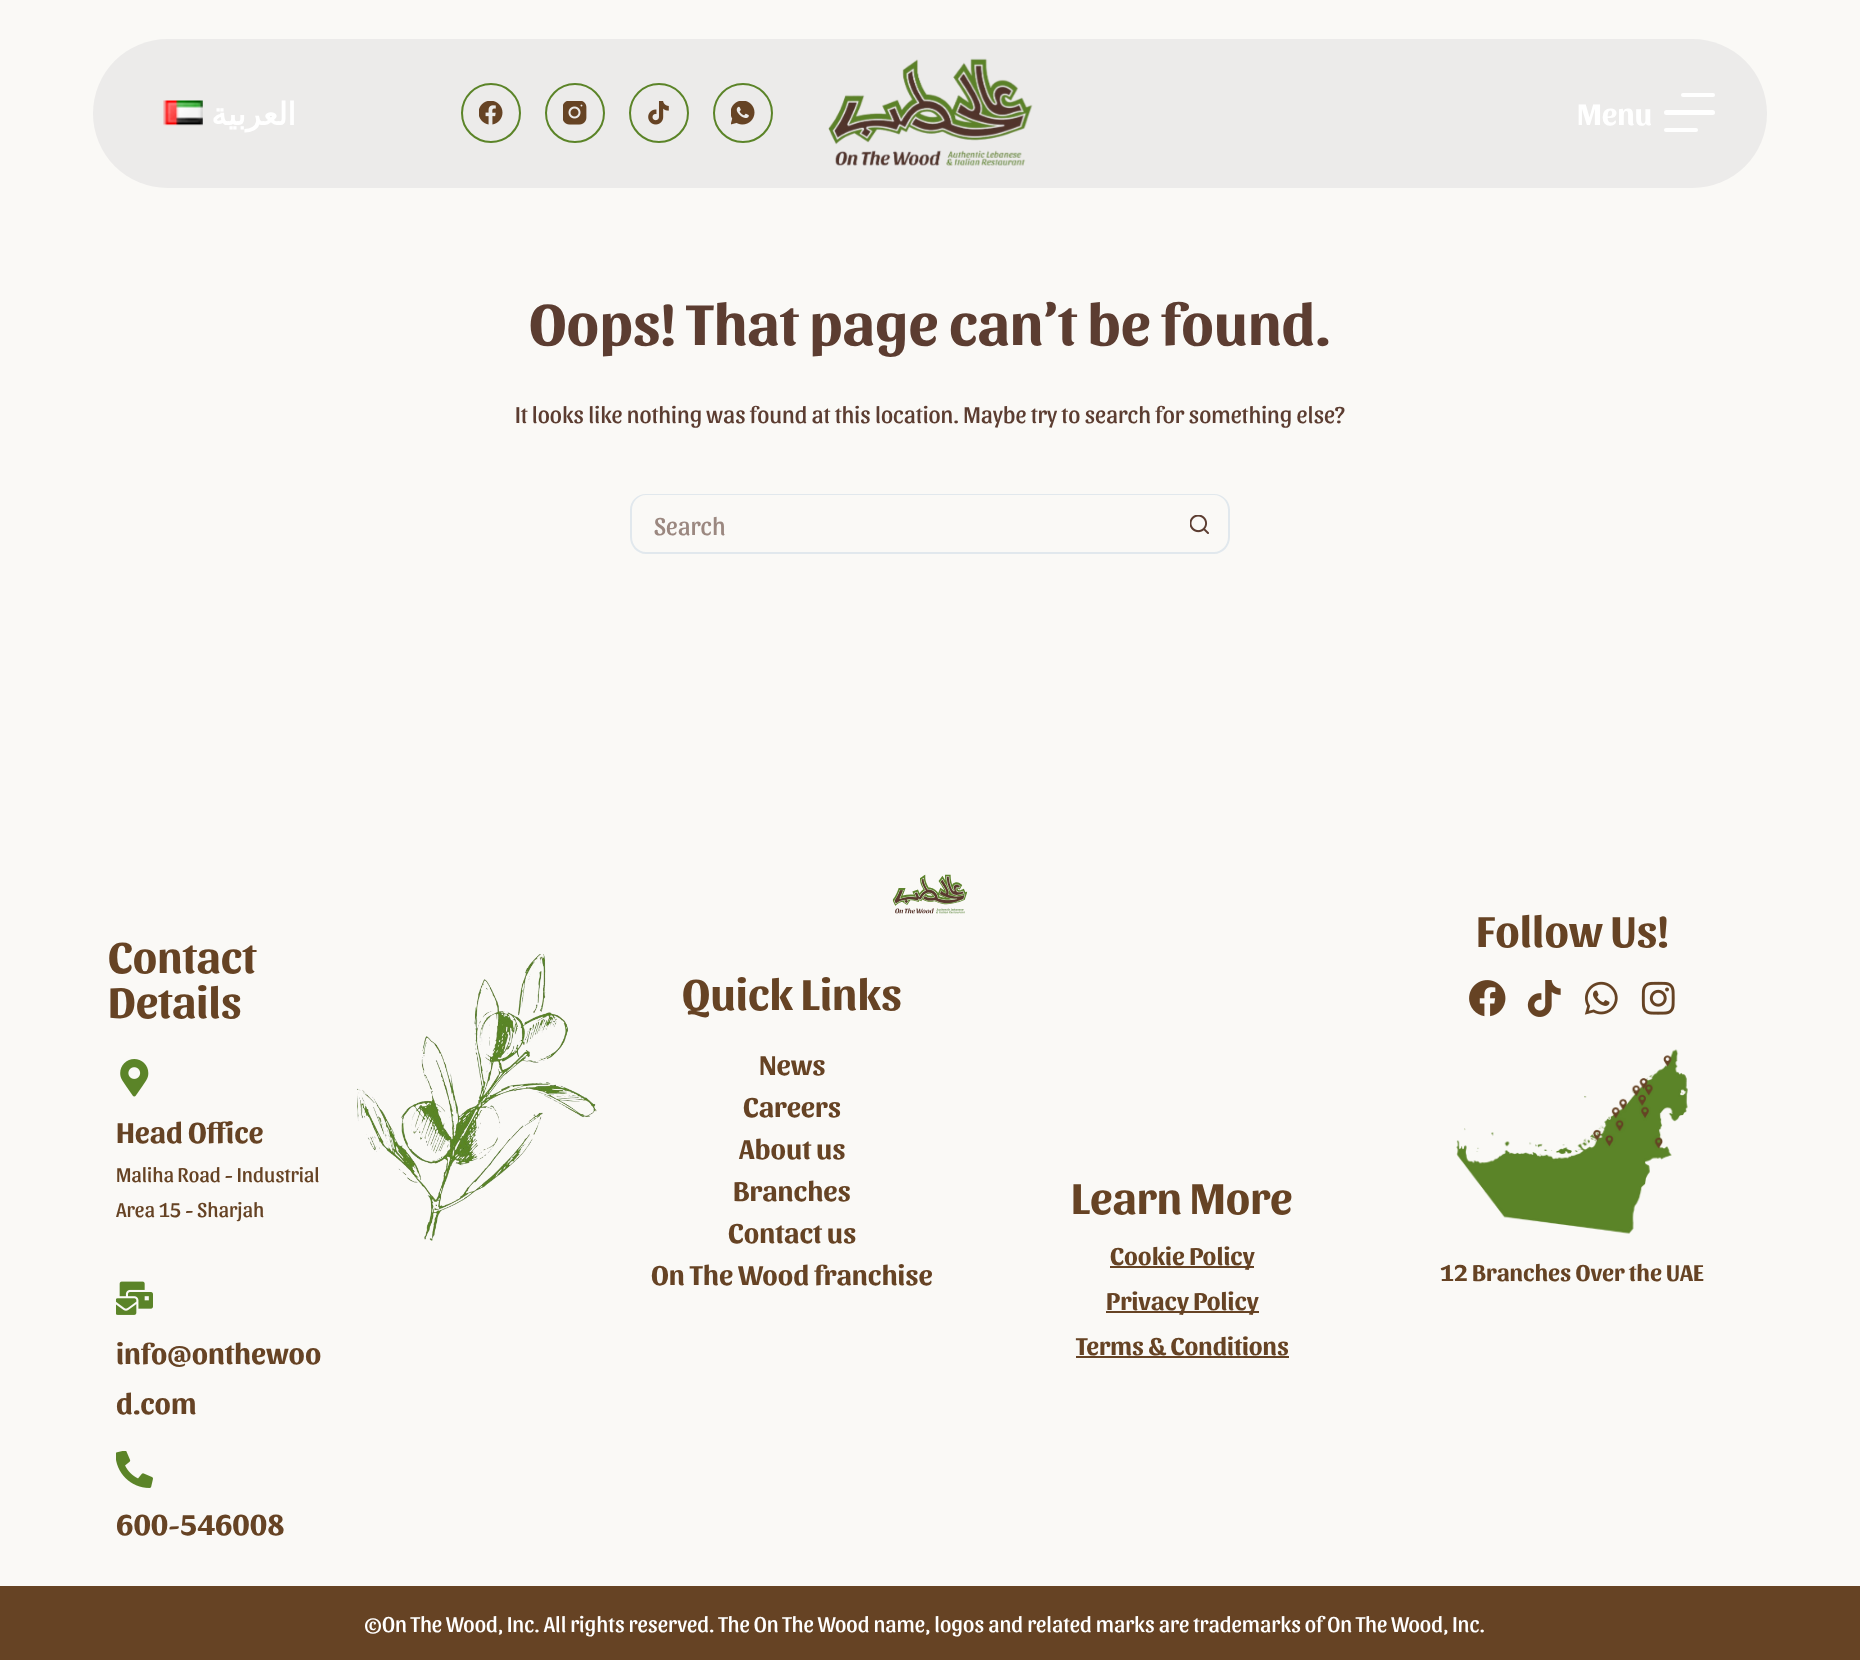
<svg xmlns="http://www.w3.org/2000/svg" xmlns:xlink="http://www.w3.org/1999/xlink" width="1860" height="1660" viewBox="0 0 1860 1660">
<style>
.cls-1{font:bold 31px DejaVu Sans;direction:rtl;fill:#ffffff}
.cls-2{font:bold 31px Sansita;fill:#ffffff}
.cls-3{font:bold 60px Sansita;fill:#5c3d31}
.cls-4{font:24px Sansita;fill:#5c3d31}
.cls-5{font:25.5px Sansita;fill:#9b8880}
.cls-6{font:bold 45px Sansita;fill:#664324}
.cls-7{font:bold 30px Sansita;fill:#664324}
.cls-8{font:21px Sansita;fill:#664324}
.cls-9{font:bold 28.5px Sansita;fill:#664324}
.cls-10{font:bold 25.5px Sansita;fill:#664324}
.cls-11{font:bold 24px Sansita;fill:#664324}
.cls-12{font:22.5px Sansita;fill:#ffffff}
</style>
<rect width="100%" height="100%" fill="#faf9f6"/>
<rect fill="#ecebea" x="93" y="39" width="1674" height="149" rx="74.5"/>
<image xlink:href="image0.png" x="163" y="100" width="40" height="26"/>
<circle fill="none" stroke="#5b8428" stroke-width="2" cx="491" cy="113" r="29"/>
<image xlink:href="image1.png" x="479" y="101" width="24" height="24"/>
<circle fill="none" stroke="#5b8428" stroke-width="2" cx="575" cy="113" r="29"/>
<image xlink:href="image2.png" x="563" y="101" width="24" height="24"/>
<circle fill="none" stroke="#5b8428" stroke-width="2" cx="659" cy="113" r="29"/>
<image xlink:href="image3.png" x="648" y="101" width="21" height="24"/>
<circle fill="none" stroke="#5b8428" stroke-width="2" cx="743" cy="113" r="29"/>
<image xlink:href="image4.png" x="731" y="101" width="24" height="24"/>
<image xlink:href="image5.png" x="828" y="58" width="205" height="108"/>
<rect fill="#ffffff" x="1681" y="93" width="34" height="4" rx="2"/>
<rect fill="#ffffff" x="1664" y="110" width="51" height="5" rx="2.5"/>
<rect fill="#ffffff" x="1664" y="128" width="34" height="4" rx="2"/>
<path fill="#e1e8ed" fill-rule="evenodd" d="M646 494H1170V554H646C637 554 630 546 630 537V510C630 501 637 494 646 494ZM646 495H1170V552H646C638 552 632 545 632 537V510C632 502 638 495 646 495Z"/>
<path fill="#e1e8ed" fill-rule="evenodd" d="M1170 494H1214C1223 494 1230 501 1230 510V537C1230 546 1223 554 1214 554H1170ZM1170 495H1214C1222 495 1228 502 1228 510V537C1228 545 1222 552 1214 552H1170Z"/>
<image xlink:href="image6.png" x="1190" y="515" width="19" height="19"/>
<image xlink:href="image7.png" x="892" y="874" width="76" height="40"/>
<image xlink:href="image8.png" x="120" y="1059" width="29" height="38"/>
<image xlink:href="image9.png" x="116" y="1281" width="37" height="34"/>
<image xlink:href="image10.png" x="116" y="1451" width="37" height="37"/>
<image xlink:href="image11.png" x="357" y="954" width="240" height="287"/>
<rect fill="#664324" x="1110" y="1266" width="144" height="2"/>
<rect fill="#664324" x="1106" y="1311" width="153" height="2"/>
<rect fill="#664324" x="1076" y="1356" width="213" height="2"/>
<image xlink:href="image12.png" x="1469" y="980" width="37" height="37"/>
<image xlink:href="image13.png" x="1527" y="980" width="34" height="37"/>
<image xlink:href="image14.png" x="1584" y="981" width="34" height="34"/>
<image xlink:href="image15.png" x="1641" y="981" width="34" height="34"/>
<image xlink:href="image16.png" x="1456" y="1049" width="232" height="185"/>
<rect fill="#664324" x="0" y="1586" width="1860" height="74"/>
<text class="cls-1" x="296" y="125">العربية</text>
<text class="cls-2" x="1577" y="125">Menu</text>
<text class="cls-3" x="529" y="345">Oops! That page can’t be found.</text>
<text class="cls-4" x="515" y="423">It looks like nothing was found at this location. Maybe try to search for something else?</text>
<text class="cls-5" x="654" y="535">Search</text>
<text class="cls-6"><tspan x="108" y="973">Contact</tspan><tspan x="108" y="1018">Details</tspan></text>
<text class="cls-7" x="116" y="1143">Head Office</text>
<text class="cls-8"><tspan x="116" y="1182">Maliha Road - Industrial</tspan><tspan x="116" y="1217">Area 15 - Sharjah</tspan></text>
<text class="cls-7"><tspan x="116" y="1364">info@onthewoo</tspan><tspan x="116" y="1414">d.com</tspan></text>
<text class="cls-7" x="116" y="1535">600-546008</text>
<text class="cls-6" x="682" y="1010">Quick Links</text>
<text class="cls-9" x="759" y="1075">News</text>
<text class="cls-9" x="743" y="1117">Careers</text>
<text class="cls-9" x="739" y="1159">About us</text>
<text class="cls-9" x="733" y="1201">Branches</text>
<text class="cls-9" x="728" y="1243">Contact us</text>
<text class="cls-9" x="651" y="1285">On The Wood franchise</text>
<text class="cls-6" x="1071" y="1214">Learn More</text>
<text class="cls-10" x="1110" y="1265">Cookie Policy</text>
<text class="cls-10" x="1106" y="1310">Privacy Policy</text>
<text class="cls-10" x="1076" y="1355">Terms &amp; Conditions</text>
<text class="cls-6" x="1476" y="947">Follow Us!</text>
<text class="cls-11" x="1440" y="1281">12 Branches Over the UAE</text>
<text class="cls-12" x="364" y="1632">©On The Wood, Inc. All rights reserved. The On The Wood name, logos and related marks are trademarks of On The Wood, Inc.</text>
</svg>
